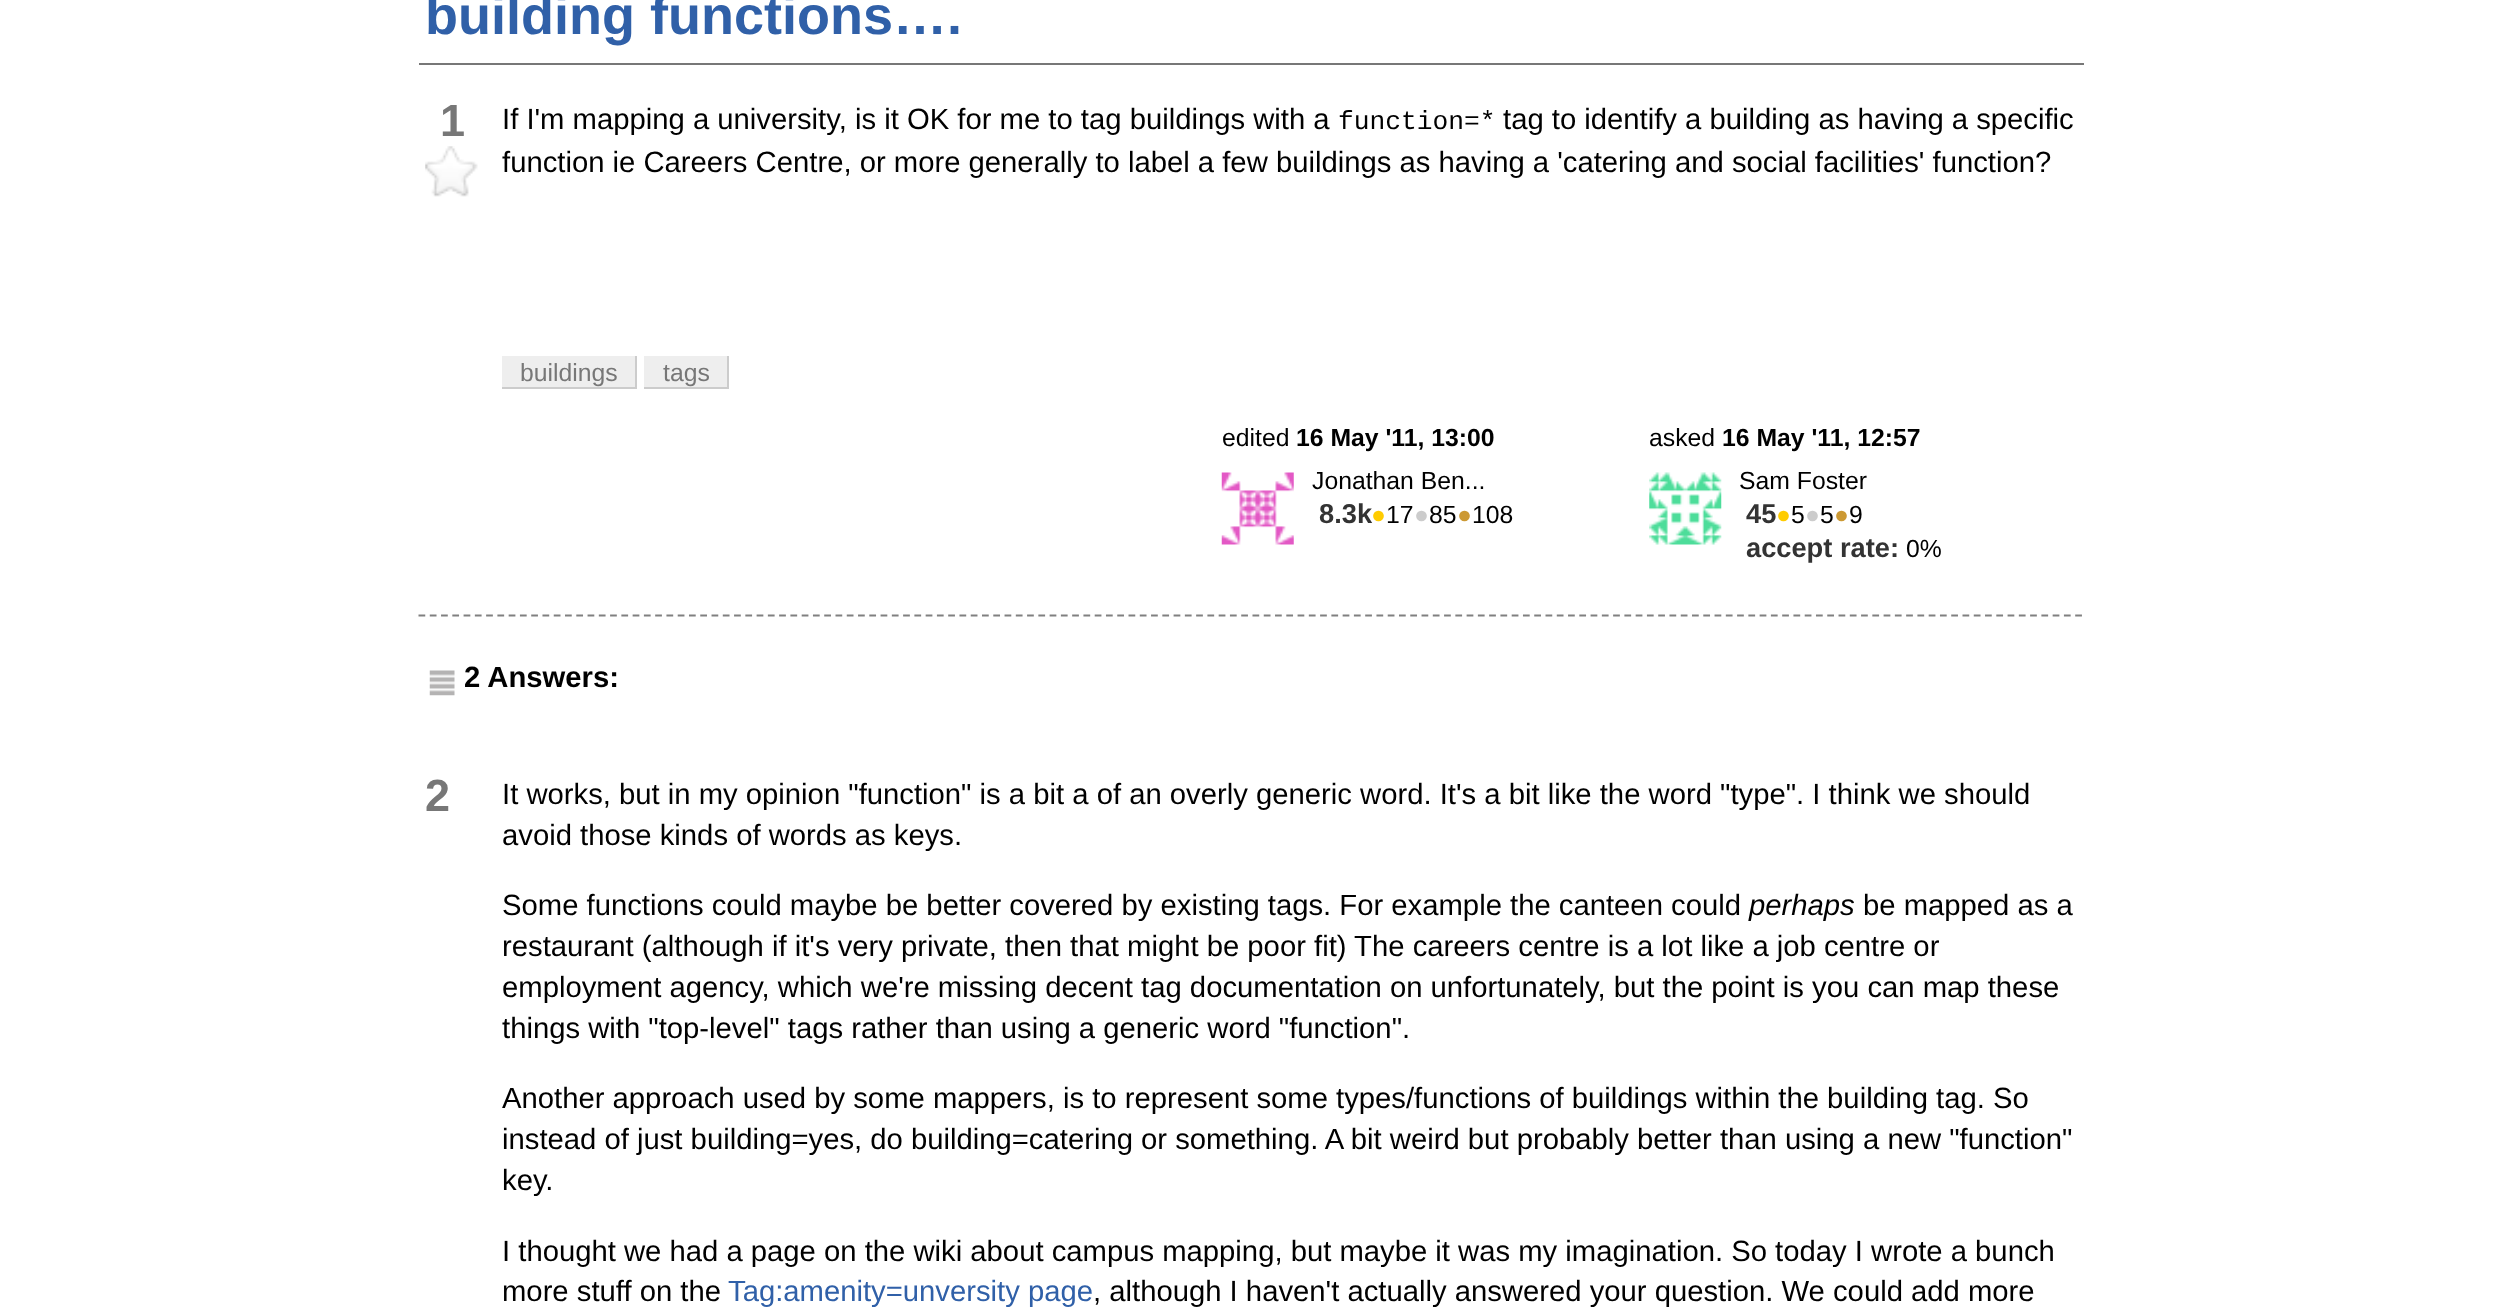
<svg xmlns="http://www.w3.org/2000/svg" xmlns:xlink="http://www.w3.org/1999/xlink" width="2501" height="1313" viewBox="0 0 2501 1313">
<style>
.cls-1{font:bold 54px Liberation Sans;fill:#3060a8}
.cls-2{font:bold 45px Liberation Sans;fill:#777777}
.cls-3{font:29.25px Liberation Sans;fill:#000000}
.cls-4{font:26.25px Liberation Mono;fill:#000000}
.cls-5{font:24.75px Liberation Sans;fill:#777777}
.cls-6{font:24.75px Liberation Sans;fill:#000000}
.cls-7{font:bold 24.75px Liberation Sans;fill:#000000}
.cls-8{font:bold 27.25px Liberation Sans;fill:#333333}
.cls-9{font:24.75px Liberation Sans;fill:#ffcc00}
.cls-10{font:24.75px Liberation Sans;fill:#cccccc}
.cls-11{font:24.75px Liberation Sans;fill:#cc9933}
.cls-12{font:bold 29.25px Liberation Sans;fill:#000000}
.cls-13{font:italic 29.25px Liberation Sans;fill:#000000}
.cls-14{font:29.25px Liberation Sans;fill:#3060a8}
</style>
<rect width="100%" height="100%" fill="#ffffff"/>
<rect fill="#777777" x="419" y="63" width="1665" height="2"/>
<image xlink:href="image0.png" x="425" y="146" width="53" height="51"/>
<rect fill="#eeeeee" x="502" y="356" width="133" height="31"/>
<rect fill="#cccccc" x="635" y="356" width="2" height="33"/>
<rect fill="#cccccc" x="502" y="387" width="135" height="2"/>
<rect fill="#eeeeee" x="644" y="356" width="83" height="31"/>
<rect fill="#cccccc" x="727" y="356" width="2" height="33"/>
<rect fill="#cccccc" x="644" y="387" width="85" height="2"/>
<image xlink:href="image1.png" x="1221" y="472" width="73" height="73"/>
<image xlink:href="image2.png" x="1649" y="472" width="73" height="73"/>
<path fill="none" stroke="#808080" stroke-width="2.2" stroke-dasharray="6.75 4.52" d="M418.5 615.5H2083.5"/>
<image xlink:href="image3.png" x="429" y="670" width="26" height="26"/>
<text class="cls-1" x="425" y="34">building functions….</text>
<text class="cls-2" x="440" y="136">1</text>
<text class="cls-3" x="502" y="129">If I'm mapping a university, is it OK for me to tag buildings with a</text>
<text class="cls-4" x="1338" y="129">function=*</text>
<text class="cls-3" x="1503" y="129">tag to identify a building as having a specific</text>
<text class="cls-3" x="502" y="172">function ie Careers Centre, or more generally to label a few buildings as having a 'catering and social facilities' function?</text>
<text class="cls-5" x="520" y="381">buildings</text>
<text class="cls-5" x="663" y="381">tags</text>
<text class="cls-6" x="1222" y="446">edited</text>
<text class="cls-7" x="1296" y="446">16 May '11, 13:00</text>
<text class="cls-6" x="1312" y="489">Jonathan Ben...</text>
<text class="cls-8" x="1319" y="523">8.3k</text>
<text class="cls-9" x="1371" y="523">●</text>
<text class="cls-6" x="1386" y="523">17</text>
<text class="cls-10" x="1414" y="523">●</text>
<text class="cls-6" x="1429" y="523">85</text>
<text class="cls-11" x="1457" y="523">●</text>
<text class="cls-6" x="1472" y="523">108</text>
<text class="cls-6" x="1649" y="446">asked</text>
<text class="cls-7" x="1722" y="446">16 May '11, 12:57</text>
<text class="cls-6" x="1739" y="489">Sam Foster</text>
<text class="cls-8" x="1746" y="523">45</text>
<text class="cls-9" x="1776" y="523">●</text>
<text class="cls-6" x="1791" y="523">5</text>
<text class="cls-10" x="1805" y="523">●</text>
<text class="cls-6" x="1820" y="523">5</text>
<text class="cls-11" x="1834" y="523">●</text>
<text class="cls-6" x="1849" y="523">9</text>
<text class="cls-8" x="1746" y="557">accept rate:</text>
<text class="cls-6" x="1906" y="557">0%</text>
<text class="cls-12" x="464" y="687">2 Answers:</text>
<text class="cls-2" x="425" y="811">2</text>
<text class="cls-3"><tspan x="502" y="804">It works, but in my opinion "function" is a bit a of an overly generic word. It's a bit like the word "type". I think we should</tspan><tspan x="502" y="845">avoid those kinds of words as keys.</tspan></text>
<text class="cls-3" x="502" y="915">Some functions could maybe be better covered by existing tags. For example the canteen could</text>
<text class="cls-13" x="1749" y="915">perhaps</text>
<text class="cls-3" x="1863" y="915">be mapped as a</text>
<text class="cls-3"><tspan x="502" y="956">restaurant (although if it's very private, then that might be poor fit) The careers centre is a lot like a job centre or</tspan><tspan x="502" y="997">employment agency, which we're missing decent tag documentation on unfortunately, but the point is you can map these</tspan><tspan x="502" y="1038">things with "top-level" tags rather than using a generic word "function".</tspan></text>
<text class="cls-3"><tspan x="502" y="1108">Another approach used by some mappers, is to represent some types/functions of buildings within the building tag. So</tspan><tspan x="502" y="1149">instead of just building=yes, do building=catering or something. A bit weird but probably better than using a new "function"</tspan><tspan x="502" y="1190">key.</tspan></text>
<text class="cls-3"><tspan x="502" y="1261">I thought we had a page on the wiki about campus mapping, but maybe it was my imagination. So today I wrote a bunch</tspan><tspan x="502" y="1301">more stuff on the</tspan></text>
<text class="cls-14" x="728" y="1301">Tag:amenity=unversity page</text>
<text class="cls-3" x="1093" y="1301">, although I haven't actually answered your question. We could add more</text>
</svg>
